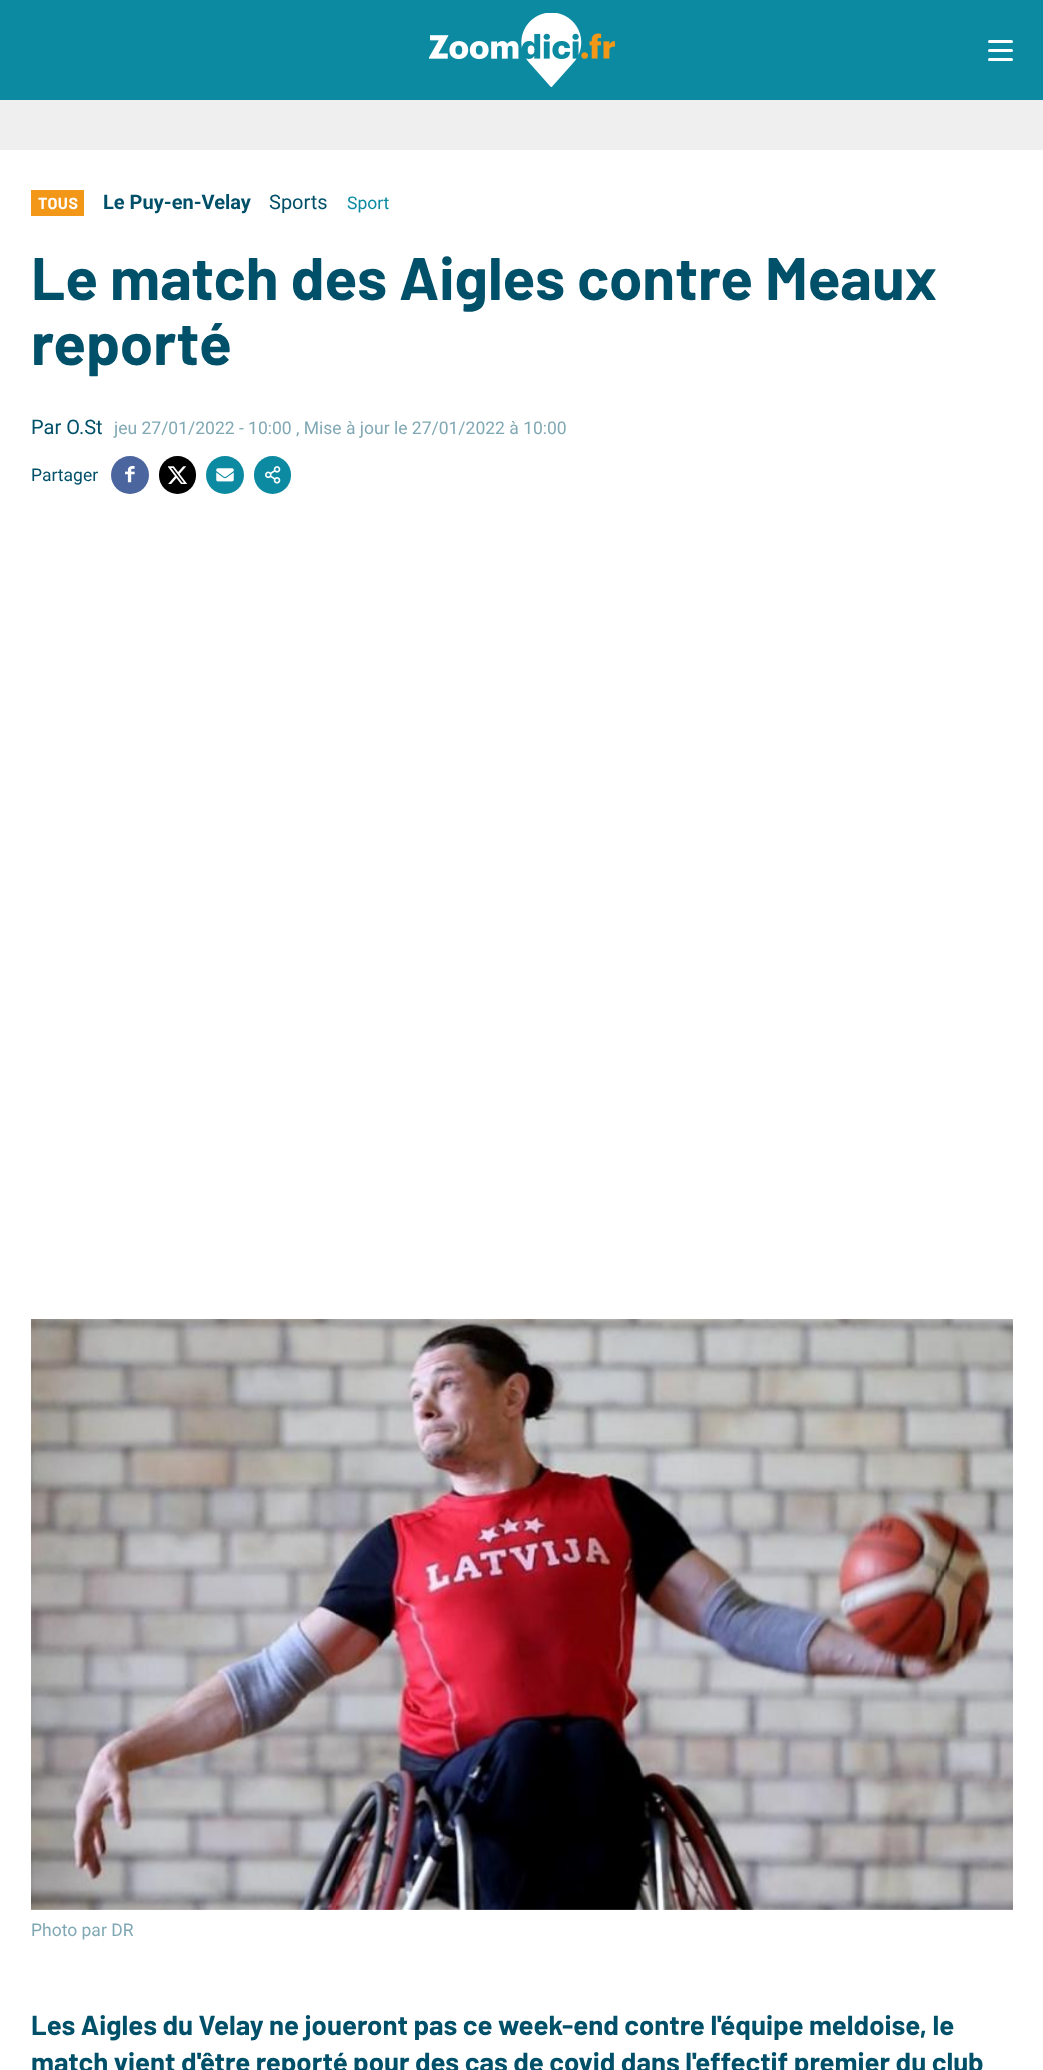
<svg xmlns="http://www.w3.org/2000/svg" xmlns:xlink="http://www.w3.org/1999/xlink" width="1043" height="2070" viewBox="0 0 1043 2070">
<style>
.cls-1{font:bold 16px Barlow;letter-spacing:0.5px;fill:#ffffff}
.cls-2{font:bold 20px Roboto;fill:#005069}
.cls-3{font:20px Roboto;fill:#005069}
.cls-4{font:17.5px Roboto;fill:#0c8aa2}
.cls-5{font:bold 60px Barlow;fill:#005069}
.cls-6{font:17.5px Roboto;fill:#80a8b4}
.cls-7{font:17.5px Roboto;fill:#005069}
.cls-8{font:bold 27.5px Barlow;fill:#005069}
</style>
<rect width="100%" height="100%" fill="#efefef"/>
<rect fill="#0c8aa2" x="0" y="0" width="1043" height="100"/>
<image xlink:href="image0.png" x="429" y="13" width="186" height="74"/>
<rect fill="#ffffff" x="988" y="40" width="25" height="3" rx="1.5"/>
<rect fill="#ffffff" x="988" y="49" width="25" height="3" rx="1.5"/>
<rect fill="#ffffff" x="988" y="58" width="25" height="3" rx="1.5"/>
<rect fill="#ffffff" x="0" y="150" width="1043" height="1920"/>
<rect fill="#f29717" x="31" y="190" width="53" height="26"/>
<circle fill="#4b659e" cx="130" cy="475" r="19"/>
<image xlink:href="image1.png" x="125" y="466" width="10" height="17"/>
<rect fill="#000000" x="159" y="456" width="37" height="38" rx="18.5"/>
<image xlink:href="image2.png" x="168" y="466" width="20" height="18"/>
<circle fill="#0c8aa2" cx="225" cy="475" r="19"/>
<image xlink:href="image3.png" x="216" y="468" width="18" height="14"/>
<rect fill="#0c8aa2" x="254" y="456" width="37" height="38" rx="18.5"/>
<image xlink:href="image4.png" x="265" y="466" width="16" height="18"/>
<image xlink:href="image5.png" x="31" y="1319" width="982" height="591"/>
<text class="cls-1" x="38" y="209">TOUS</text>
<text class="cls-2" x="103" y="209">Le Puy-en-Velay</text>
<text class="cls-3" x="269" y="209">Sports</text>
<text class="cls-4" x="347" y="209">Sport</text>
<text class="cls-5"><tspan x="31" y="300">Le match des Aigles contre Meaux</tspan><tspan x="31" y="365">reporté</tspan></text>
<text class="cls-3" x="31" y="434">Par O.St</text>
<text class="cls-6" x="114" y="434">jeu 27/01/2022 - 10:00 , Mise à jour le 27/01/2022 à 10:00</text>
<text class="cls-7" x="31" y="481">Partager</text>
<text class="cls-6" x="31" y="1936">Photo par DR</text>
<text class="cls-8"><tspan x="31" y="2035">Les Aigles du Velay ne joueront pas ce week-end contre l'équipe meldoise, le</tspan><tspan x="31" y="2072">match vient d'être reporté pour des cas de covid dans l'effectif premier du club</tspan></text>
</svg>
